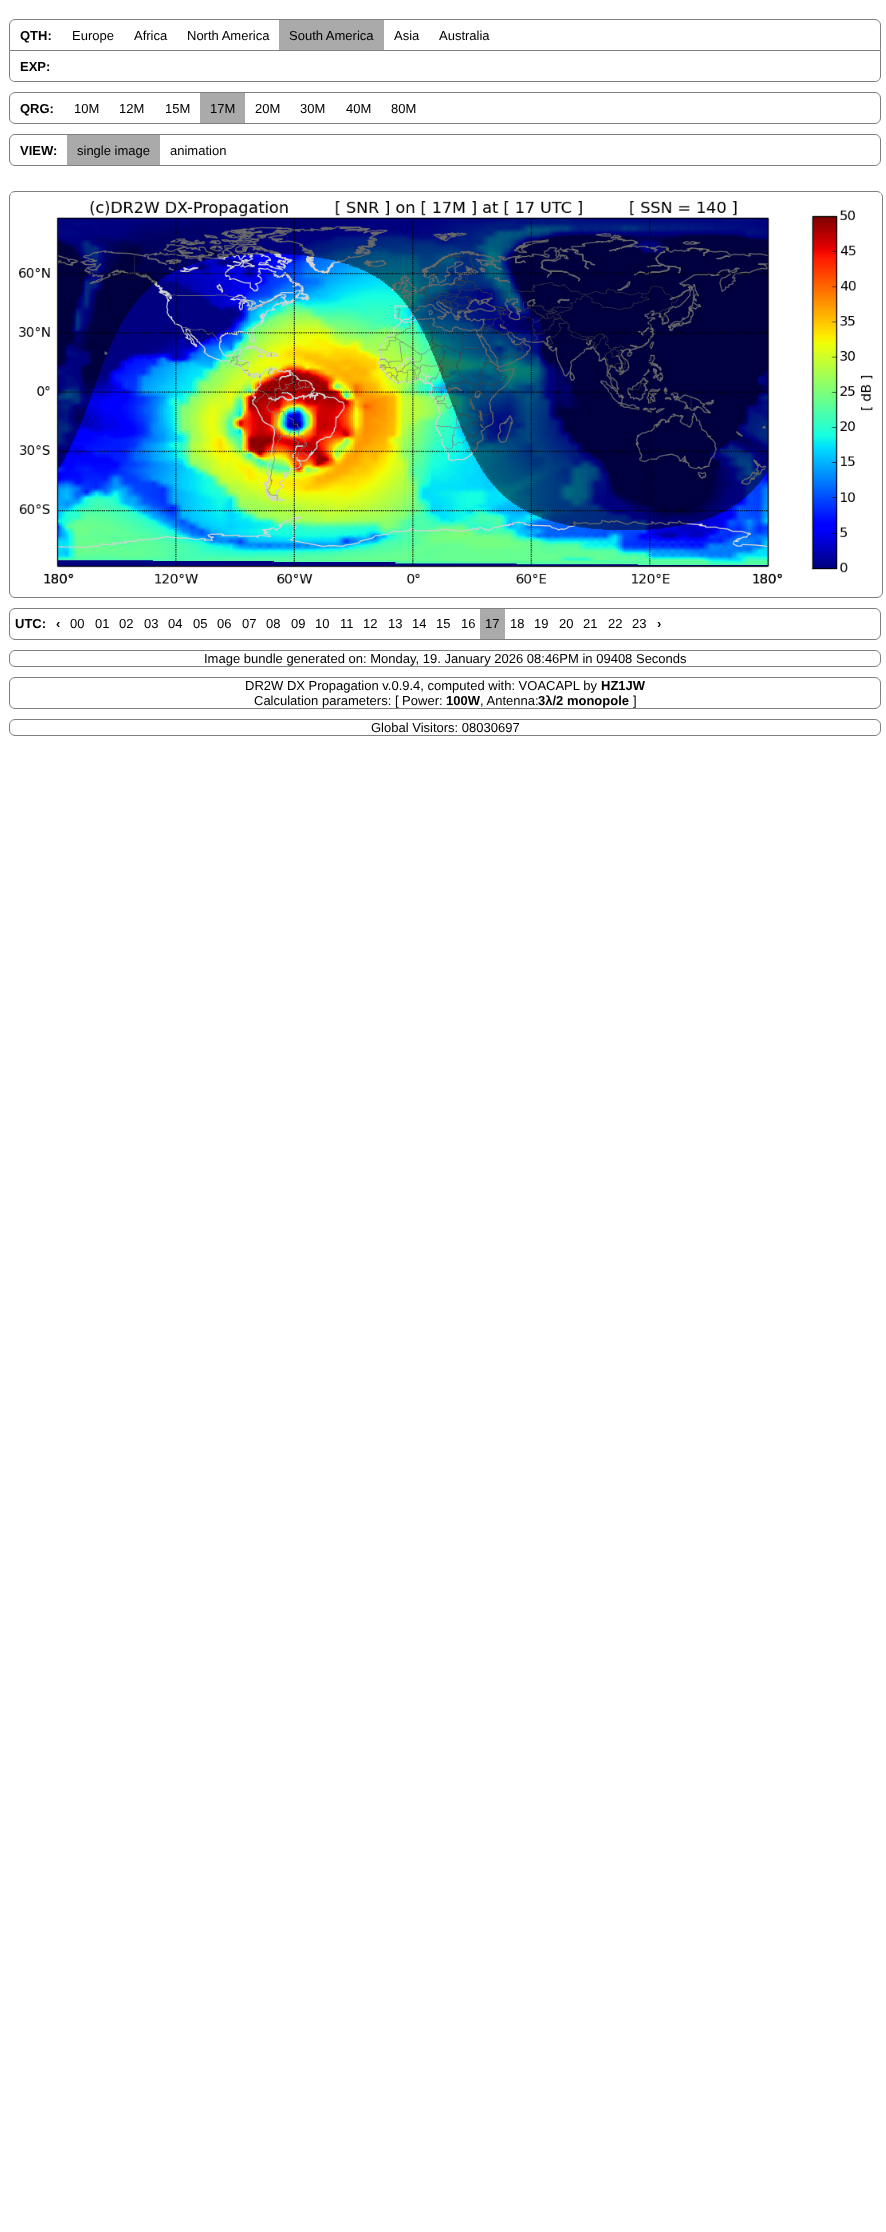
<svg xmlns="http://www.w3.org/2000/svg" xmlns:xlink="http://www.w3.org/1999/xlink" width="886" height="2232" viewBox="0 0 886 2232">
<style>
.cls-1{font:bold 13px Liberation Sans;fill:#000000}
.cls-2{font:13px Liberation Sans;fill:#000000}
</style>
<rect width="100%" height="100%" fill="#ffffff"/>
<path fill="none" stroke="#808080" d="M15 19.5H875C878 19.5 880.5 22 880.5 25V50.5H9.5V25C9.5 22 12 19.5 15 19.5Z"/>
<rect fill="#aaaaaa" x="279" y="20" width="105" height="30"/>
<path fill="#808080" fill-rule="evenodd" d="M9 51H881V76C881 79 878 82 875 82H15C12 82 9 79 9 76ZM10 51H880V76C880 79 878 81 875 81H15C12 81 10 79 10 76Z"/>
<rect fill="none" stroke="#808080" x="9.5" y="92.5" width="871" height="31" rx="5.5"/>
<rect fill="#aaaaaa" x="200" y="93" width="45" height="30"/>
<rect fill="none" stroke="#808080" x="9.5" y="134.5" width="871" height="31" rx="5.5"/>
<rect fill="#aaaaaa" x="67" y="135" width="93" height="30"/>
<rect fill="none" stroke="#808080" x="9.5" y="191.5" width="873" height="406" rx="5.5"/>
<image xlink:href="image0.png" x="11" y="193" width="870" height="391"/>
<rect fill="none" stroke="#808080" x="9.5" y="608.5" width="871" height="31" rx="5.5"/>
<rect fill="#aaaaaa" x="480" y="609" width="25" height="30"/>
<rect fill="none" stroke="#808080" x="9.5" y="650.5" width="871" height="16" rx="5.5"/>
<rect fill="none" stroke="#808080" x="9.5" y="677.5" width="871" height="31" rx="5.5"/>
<rect fill="none" stroke="#808080" x="9.5" y="719.5" width="871" height="16" rx="5.5"/>
<text class="cls-1" x="20" y="40">QTH:</text>
<text class="cls-2" x="72" y="40">Europe</text>
<text class="cls-2" x="134" y="40">Africa</text>
<text class="cls-2" x="187" y="40">North America</text>
<text class="cls-2" x="289" y="40">South America</text>
<text class="cls-2" x="394" y="40">Asia</text>
<text class="cls-2" x="439" y="40">Australia</text>
<text class="cls-1" x="20" y="71">EXP:</text>
<text class="cls-1" x="20" y="113">QRG:</text>
<text class="cls-2" x="74" y="113">10M</text>
<text class="cls-2" x="119" y="113">12M</text>
<text class="cls-2" x="165" y="113">15M</text>
<text class="cls-2" x="210" y="113">17M</text>
<text class="cls-2" x="255" y="113">20M</text>
<text class="cls-2" x="300" y="113">30M</text>
<text class="cls-2" x="346" y="113">40M</text>
<text class="cls-2" x="391" y="113">80M</text>
<text class="cls-1" x="20" y="155">VIEW:</text>
<text class="cls-2" x="77" y="155">single image</text>
<text class="cls-2" x="170" y="155">animation</text>
<text class="cls-1" x="15" y="628">UTC:</text>
<text class="cls-1" x="56" y="628">‹</text>
<text class="cls-2" x="70" y="628">00</text>
<text class="cls-2" x="95" y="628">01</text>
<text class="cls-2" x="119" y="628">02</text>
<text class="cls-2" x="144" y="628">03</text>
<text class="cls-2" x="168" y="628">04</text>
<text class="cls-2" x="193" y="628">05</text>
<text class="cls-2" x="217" y="628">06</text>
<text class="cls-2" x="242" y="628">07</text>
<text class="cls-2" x="266" y="628">08</text>
<text class="cls-2" x="291" y="628">09</text>
<text class="cls-2" x="315" y="628">10</text>
<text class="cls-2" x="340" y="628">11</text>
<text class="cls-2" x="363" y="628">12</text>
<text class="cls-2" x="388" y="628">13</text>
<text class="cls-2" x="412" y="628">14</text>
<text class="cls-2" x="436" y="628">15</text>
<text class="cls-2" x="461" y="628">16</text>
<text class="cls-2" x="485" y="628">17</text>
<text class="cls-2" x="510" y="628">18</text>
<text class="cls-2" x="534" y="628">19</text>
<text class="cls-2" x="559" y="628">20</text>
<text class="cls-2" x="583" y="628">21</text>
<text class="cls-2" x="608" y="628">22</text>
<text class="cls-2" x="632" y="628">23</text>
<text class="cls-1" x="657" y="628">›</text>
<text class="cls-2" x="204" y="663">Image bundle generated on: Monday, 19. January 2026 08:46PM in 09408 Seconds</text>
<text class="cls-2" x="245" y="690">DR2W DX Propagation v.0.9.4, computed with: VOACAPL by</text>
<text class="cls-1" x="601" y="690">HZ1JW</text>
<text class="cls-2" x="254" y="705">Calculation parameters: [ Power:</text>
<text class="cls-1" x="446" y="705">100W</text>
<text class="cls-2" x="480" y="705">, Antenna:</text>
<text class="cls-1" x="538" y="705">3λ/2 monopole</text>
<text class="cls-2" x="633" y="705">]</text>
<text class="cls-2" x="371" y="732">Global Visitors: 08030697</text>
</svg>
